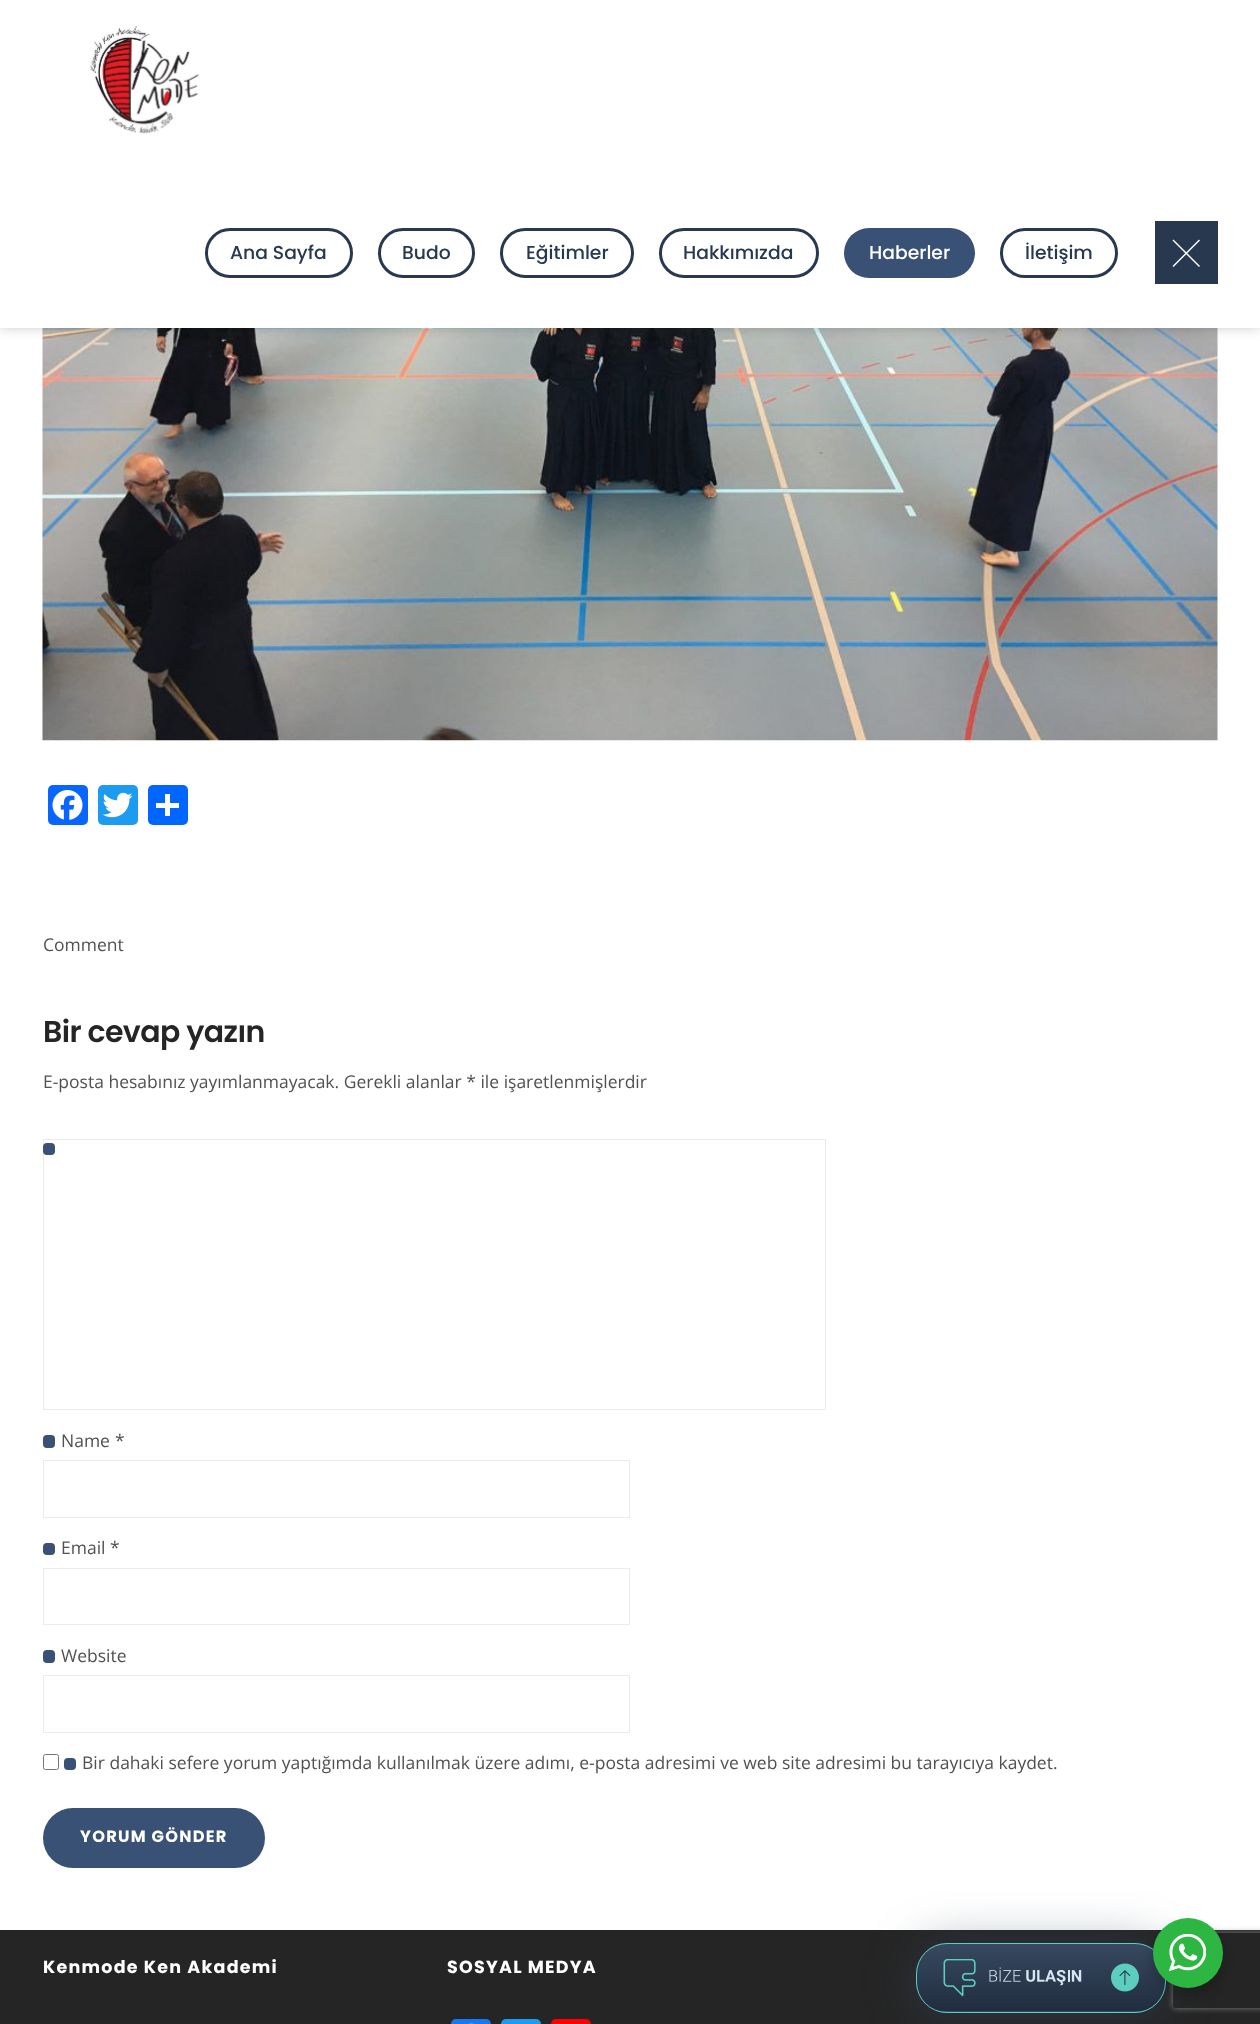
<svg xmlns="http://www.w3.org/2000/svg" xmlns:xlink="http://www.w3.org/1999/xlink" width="1260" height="2024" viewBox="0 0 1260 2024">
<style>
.cls-1{font:500 18.75px Poppins;fill:#27384f}
.cls-2{font:500 18.75px Poppins;fill:#ffffff}
.cls-3{font:17.5px Open Sans;fill:#515151}
.cls-4{font:600 30px Poppins;letter-spacing:-0.6px;fill:#252525}
.cls-5{font:bold 16.25px Poppins;letter-spacing:1.25px;fill:#ffffff}
.cls-6{font:bold 17.5px Poppins;letter-spacing:1.25px;fill:#ffffff}
</style>
<defs>
<clipPath id="clip1"><path d="M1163 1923H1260V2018H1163ZM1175.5 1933H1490.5C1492 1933 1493 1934 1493 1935.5V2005.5C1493 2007 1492 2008 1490.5 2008H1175.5C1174 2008 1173 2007 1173 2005.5V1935.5C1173 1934 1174 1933 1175.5 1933Z" clip-rule="evenodd"/></clipPath>
<clipPath id="clip2"><rect x="916" y="1943" width="250" height="70" rx="31"/></clipPath>
<linearGradient id="g1" gradientUnits="userSpaceOnUse" x1="1041" y1="1944" x2="1041" y2="2011"><stop offset="0" stop-color="#374960"/><stop offset="1" stop-color="#212d3f"/></linearGradient>
<linearGradient id="g2" gradientUnits="userSpaceOnUse" x1="1041" y1="2011" x2="1041" y2="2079"><stop offset="0" stop-color="#374960"/><stop offset="1" stop-color="#212d3f"/></linearGradient>
</defs>
<rect width="100%" height="100%" fill="#ffffff"/>
<image xlink:href="image1.png" x="42" y="328" width="1176" height="413"/>
<rect fill="#000000" fill-opacity="0.2" filter="blur(6px)" x="0" y="0" width="1260" height="328"/>
<rect fill="#ffffff" x="0" y="0" width="1260" height="328"/>
<image xlink:href="image0.png" x="90" y="26" width="110" height="108"/>
<rect fill="none" stroke="#27384f" stroke-width="3" x="206.5" y="229.5" width="145" height="47" rx="23.5"/>
<rect fill="none" stroke="#27384f" stroke-width="3" x="379.5" y="229.5" width="94" height="47" rx="23.5"/>
<rect fill="none" stroke="#27384f" stroke-width="3" x="501.5" y="229.5" width="131" height="47" rx="23.5"/>
<rect fill="none" stroke="#27384f" stroke-width="3" x="660.5" y="229.5" width="157" height="47" rx="23.5"/>
<rect fill="#395174" x="844" y="228" width="131" height="50" rx="25"/>
<rect fill="none" stroke="#27384f" stroke-width="3" x="1001.5" y="229.5" width="115" height="47" rx="23.5"/>
<rect fill="#27384f" x="1155" y="221" width="63" height="63"/>
<path fill="#ffffff" d="M1173.5 239.5L1200 266L1199 267L1172.5 240.5Z"/>
<path fill="#ffffff" d="M1172.5 266L1199 239.5L1200 240.5L1173.5 267Z"/>
<rect fill="#0866ff" x="48" y="785" width="40" height="40" rx="5"/>
<image xlink:href="image2.png" x="52" y="790" width="31" height="30"/>
<rect fill="#1d9bf0" x="98" y="785" width="40" height="40" rx="5"/>
<image xlink:href="image3.png" x="102" y="792" width="31" height="26"/>
<rect fill="#0166ff" x="148" y="785" width="40" height="40" rx="5"/>
<rect fill="#ffffff" x="165" y="794" width="5" height="22"/>
<rect fill="#ffffff" x="156" y="803" width="23" height="5"/>
<rect fill="none" stroke="#ebebeb" x="43.5" y="1139.5" width="782" height="270"/>
<rect fill="#395174" x="43" y="1143" width="12" height="12" rx="4"/>
<rect fill="#395174" x="43" y="1435" width="12" height="13" rx="4"/>
<rect fill="none" stroke="#ebebeb" x="43.5" y="1460.5" width="586" height="57"/>
<rect fill="#395174" x="43" y="1543" width="12" height="12" rx="4"/>
<rect fill="none" stroke="#ebebeb" x="43.5" y="1568.5" width="586" height="56"/>
<rect fill="#395174" x="43" y="1650" width="12" height="13" rx="4"/>
<rect fill="none" stroke="#ebebeb" x="43.5" y="1675.5" width="586" height="57"/>
<rect fill="none" stroke="#767676" x="43.5" y="1754.5" width="15" height="15" rx="2"/>
<rect fill="#395174" x="64" y="1758" width="12" height="12" rx="4"/>
<rect fill="#395174" x="43" y="1808" width="222" height="60" rx="30"/>
<rect fill="#252525" x="0" y="1930" width="1260" height="94"/>
<rect fill="#1877f2" x="451" y="2019" width="40" height="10" rx="5"/>
<image xlink:href="image4.png" x="469" y="2023" width="5" height="1"/>
<rect fill="#1d9bf0" x="501" y="2019" width="40" height="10" rx="5"/>
<rect fill="#ff0000" x="551" y="2019" width="40" height="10" rx="5"/>
<rect fill="#36485f" fill-opacity="0.5" filter="blur(25px)" x="916" y="1946" width="250" height="70" rx="31"/>
<g clip-path="url(#clip1)">
<rect fill="#808080" filter="blur(3px)" x="1173" y="1933" width="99" height="75" rx="2.5"/>
</g>
<g clip-path="url(#clip2)">
<rect fill="url(#g1)" x="916" y="1944" width="250" height="67"/>
<rect fill="url(#g2)" x="936" y="2011" width="210" height="2"/>
</g>
<rect fill="none" stroke="#5ccebf" x="916.5" y="1943.5" width="249" height="69" rx="30.5"/>
<image xlink:href="image5.png" x="943" y="1959" width="196" height="37"/>
<rect fill="#000000" fill-opacity="0.14" filter="blur(5px)" x="1150" y="1923" width="75" height="75" rx="37.5"/>
<circle fill="#2db742" cx="1188" cy="1953" r="35"/>
<image xlink:href="image6.png" x="1169" y="1934" width="37" height="37"/>
<text class="cls-1" x="230" y="259">Ana Sayfa</text>
<text class="cls-1" x="402" y="259">Budo</text>
<text class="cls-1" x="526" y="259">Eğitimler</text>
<text class="cls-1" x="683" y="259">Hakkımızda</text>
<text class="cls-2" x="869" y="259">Haberler</text>
<text class="cls-1" x="1025" y="259">İletişim</text>
<text class="cls-3" x="43" y="951">Comment</text>
<text class="cls-4" x="43" y="1042">Bir cevap yazın</text>
<text class="cls-3" x="43" y="1088">E-posta hesabınız yayımlanmayacak. Gerekli alanlar * ile işaretlenmişlerdir</text>
<text class="cls-3" x="61" y="1447">Name</text>
<text class="cls-3" x="115" y="1447">*</text>
<text class="cls-3" x="61" y="1554">Email</text>
<text class="cls-3" x="110" y="1554">*</text>
<text class="cls-3" x="61" y="1662">Website</text>
<text class="cls-3" x="82" y="1769">Bir dahaki sefere yorum yaptığımda kullanılmak üzere adımı, e-posta adresimi ve web site adresimi bu tarayıcıya kaydet.</text>
<text class="cls-5" x="80" y="1842">YORUM GÖNDER</text>
<text class="cls-6" x="43" y="1973">Kenmode Ken Akademi</text>
<text class="cls-6" x="447" y="1973">SOSYAL MEDYA</text>
</svg>
